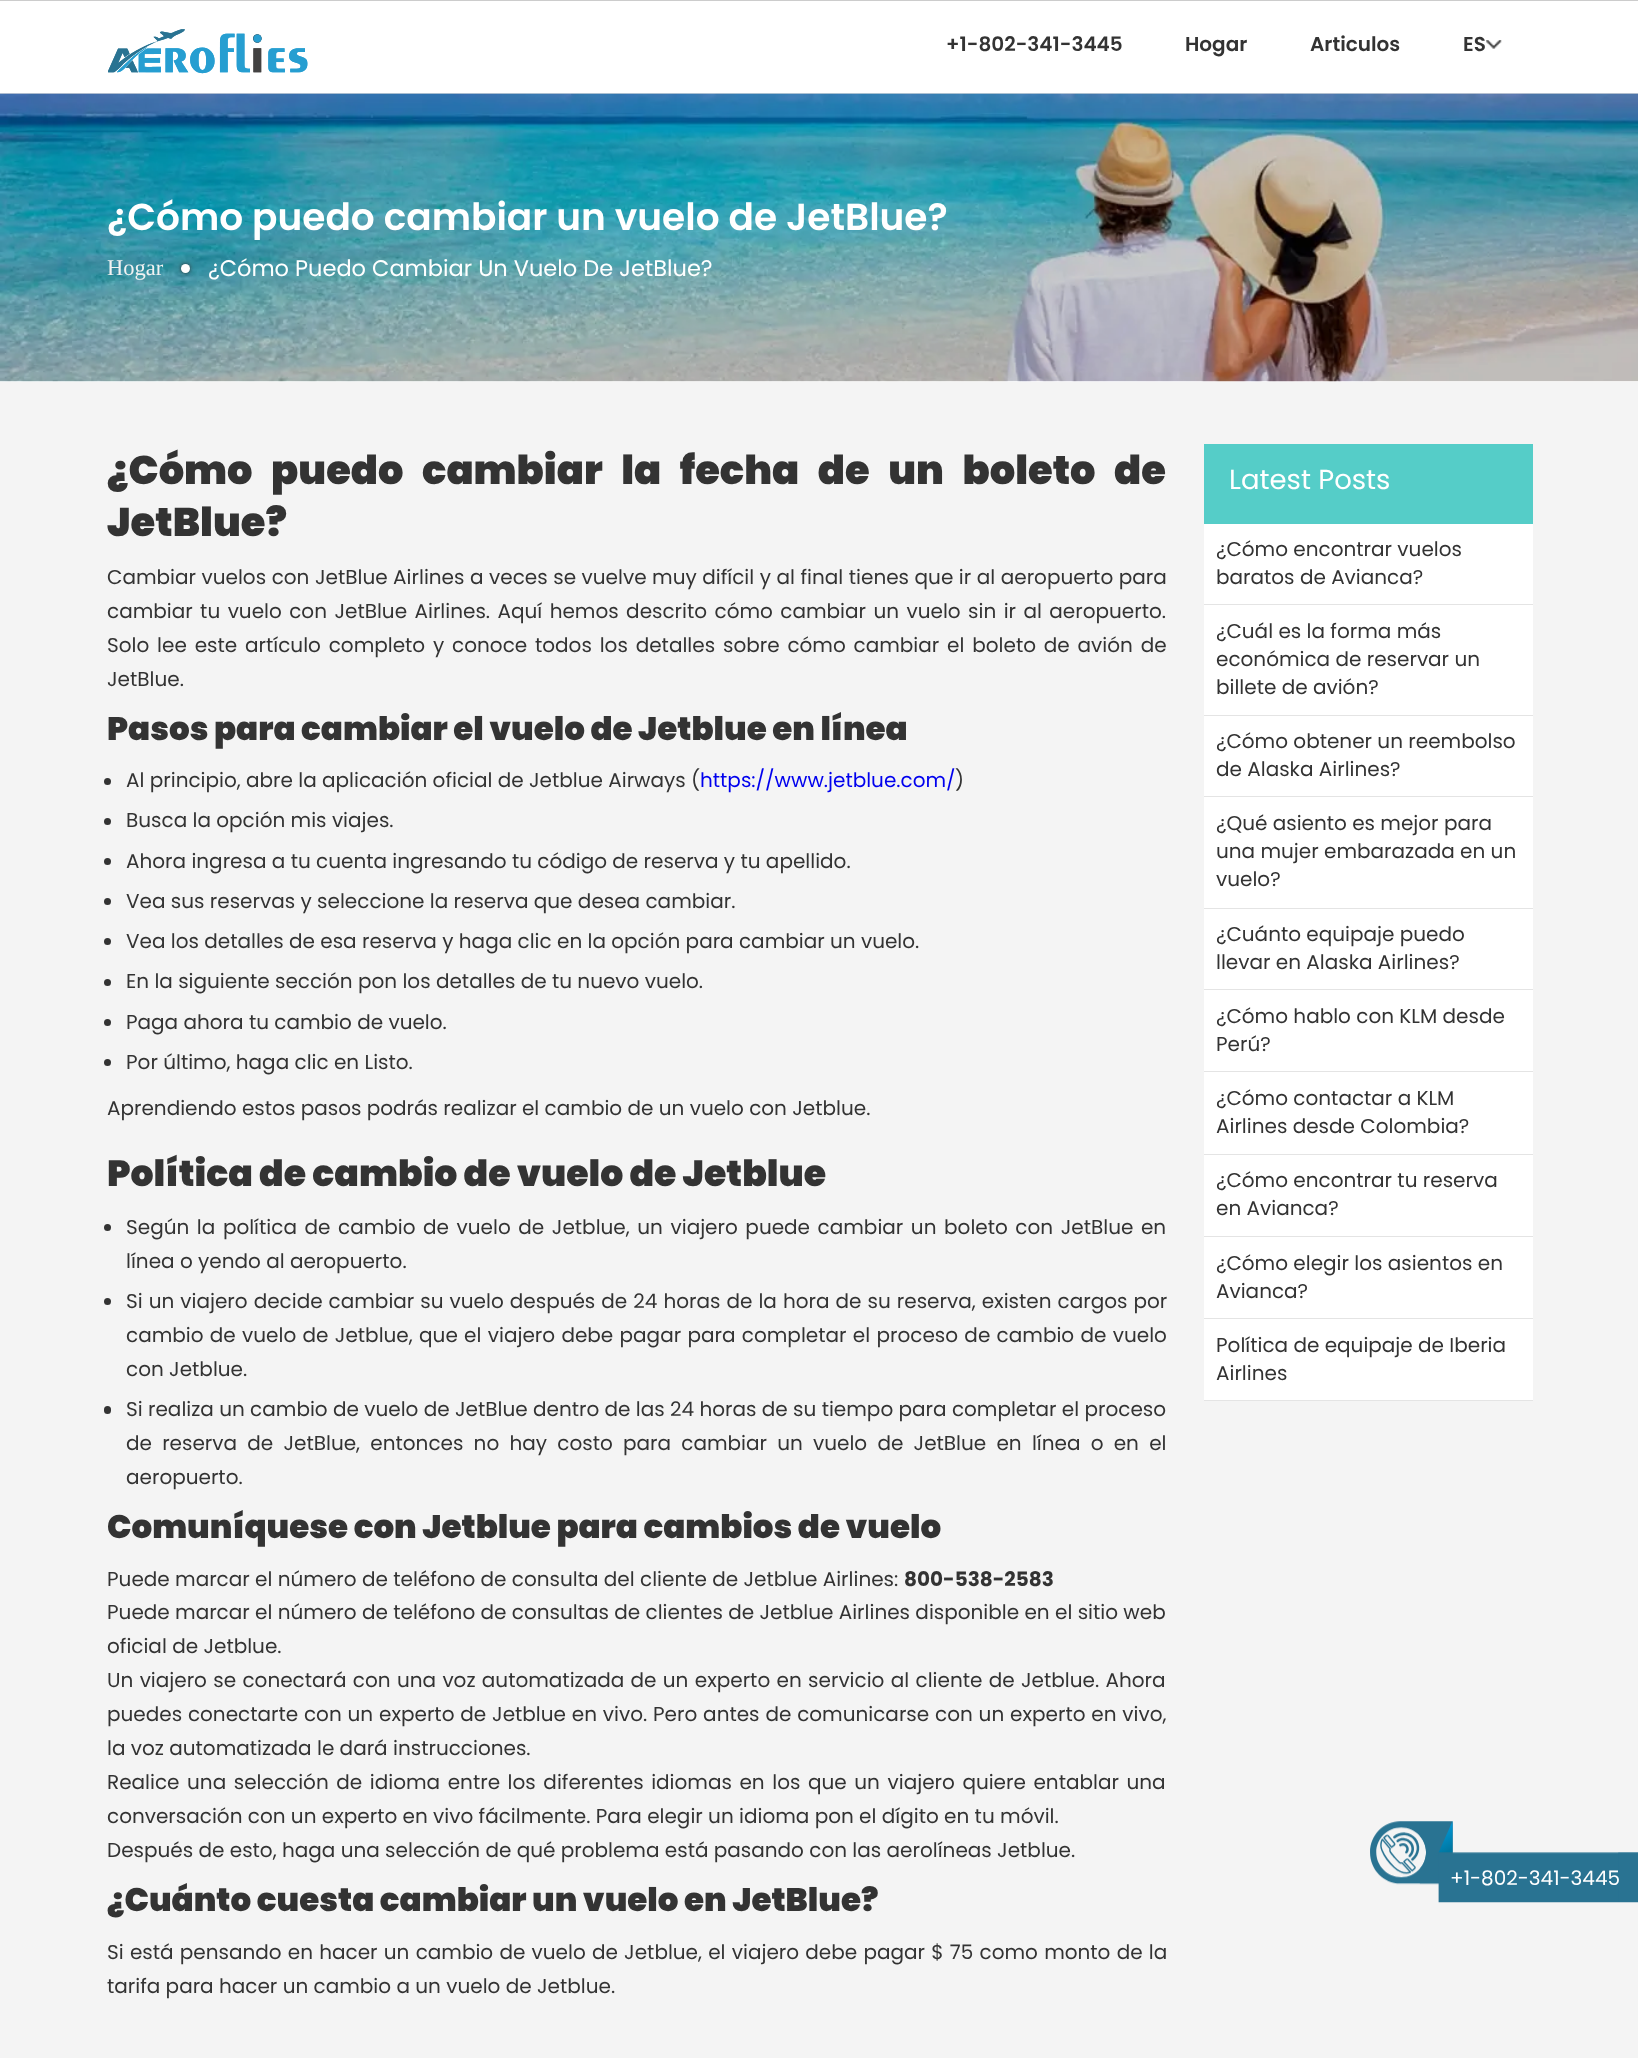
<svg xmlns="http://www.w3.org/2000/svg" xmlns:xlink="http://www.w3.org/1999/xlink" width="1638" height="2058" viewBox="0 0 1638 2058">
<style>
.cls-1{font:600 20px Poppins;fill:#333333}
.cls-2{font:600 37.5px Poppins;fill:#ffffff}
.cls-3{font:22.5px Liberation Serif;fill:#f2f2f2}
.cls-4{font:22.5px Poppins;fill:#ffffff}
.cls-5{font:900 40px Poppins;fill:#333333}
.cls-6{font:20px Poppins;fill:#333333}
.cls-7{font:900 32.5px Poppins;fill:#333333}
.cls-8{font:20px Poppins;fill:#0000ee}
.cls-9{font:900 36.25px Poppins;fill:#333333}
.cls-10{font:bold 20px Poppins;fill:#333333}
.cls-11{font:27.5px Poppins;fill:#ffffff}
.cls-12{font:20px Poppins;fill:#ffffff}
</style>
<rect width="100%" height="100%" fill="#ffffff"/>
<rect fill="#cccccc" x="0" y="0" width="1638" height="1"/>
<rect fill="#cccccc" x="0" y="93" width="1638" height="1"/>
<image xlink:href="image0.png" x="108" y="29" width="200" height="45"/>
<image xlink:href="image1.png" x="108" y="29" width="200" height="45"/>
<image xlink:href="image2.png" x="1486" y="40" width="16" height="9"/>
<rect fill="#f4f4f4" x="0" y="381" width="1638" height="1677"/>
<image xlink:href="image3.png" x="0" y="93" width="1638" height="289"/>
<rect fill="#212529" filter="blur(2px)" x="181" y="264" width="9" height="9" rx="4.5"/>
<circle fill="#ffffff" cx="185.5" cy="268.5" r="4.5"/>
<circle fill="#333333" cx="107.5" cy="781.5" r="3.5"/>
<circle fill="#333333" cx="107.5" cy="821.5" r="3.5"/>
<circle fill="#333333" cx="107.5" cy="861.5" r="3.5"/>
<circle fill="#333333" cx="107.5" cy="901.5" r="3.5"/>
<circle fill="#333333" cx="107.5" cy="941.5" r="3.5"/>
<circle fill="#333333" cx="107.5" cy="982.5" r="3.5"/>
<circle fill="#333333" cx="107.5" cy="1022.5" r="3.5"/>
<circle fill="#333333" cx="107.5" cy="1062.5" r="3.5"/>
<circle fill="#333333" cx="107.5" cy="1227.5" r="3.5"/>
<circle fill="#333333" cx="107.5" cy="1301.5" r="3.5"/>
<rect fill="#333333" x="104" y="1406" width="7" height="8" rx="3.5"/>
<rect fill="#ffffff" x="1204" y="524" width="329" height="876"/>
<rect fill="#55cdc8" x="1204" y="444" width="329" height="80"/>
<rect fill="#e4e4e4" x="1204" y="604" width="329" height="1"/>
<rect fill="#e4e4e4" x="1204" y="715" width="329" height="1"/>
<rect fill="#e4e4e4" x="1204" y="796" width="329" height="1"/>
<rect fill="#e4e4e4" x="1204" y="908" width="329" height="1"/>
<rect fill="#e4e4e4" x="1204" y="989" width="329" height="1"/>
<rect fill="#e4e4e4" x="1204" y="1071" width="329" height="1"/>
<rect fill="#e4e4e4" x="1204" y="1154" width="329" height="1"/>
<rect fill="#e4e4e4" x="1204" y="1236" width="329" height="1"/>
<rect fill="#e4e4e4" x="1204" y="1318" width="329" height="1"/>
<rect fill="#e4e4e4" x="1204" y="1400" width="329" height="1"/>
<image xlink:href="image4.png" x="1370" y="1821" width="268" height="82"/>
<text class="cls-1" x="946" y="51">+1-802-341-3445</text>
<text class="cls-1" x="1185" y="51">Hogar</text>
<text class="cls-1" x="1310" y="51">Articulos</text>
<text class="cls-1" x="1463" y="51">ES</text>
<text class="cls-2" x="107" y="230">¿Cómo puedo cambiar un vuelo de JetBlue?</text>
<text class="cls-3" x="107" y="275">Hogar</text>
<text class="cls-4" x="208" y="276">¿Cómo Puedo Cambiar Un Vuelo De JetBlue?</text>
<text class="cls-5"><tspan x="107" y="484" word-spacing="11.75">¿Cómo puedo cambiar la fecha de un boleto de</tspan><tspan x="107" y="536">JetBlue?</tspan></text>
<text class="cls-6"><tspan x="107" y="584" word-spacing="0.2">Cambiar vuelos con JetBlue Airlines a veces se vuelve muy difícil y al final tienes que ir al aeropuerto para</tspan><tspan x="107" y="618" word-spacing="2.1">cambiar tu vuelo con JetBlue Airlines. Aquí hemos descrito cómo cambiar un vuelo sin ir al aeropuerto.</tspan><tspan x="107" y="652" word-spacing="2.5">Solo lee este artículo completo y conoce todos los detalles sobre cómo cambiar el boleto de avión de</tspan><tspan x="107" y="686">JetBlue.</tspan></text>
<text class="cls-7" x="107" y="740">Pasos para cambiar el vuelo de Jetblue en línea</text>
<text class="cls-6" x="126" y="787">Al principio, abre la aplicación oficial de Jetblue Airways (</text>
<text class="cls-8" x="700" y="787">https://www.jetblue.com/</text>
<text class="cls-6" x="955" y="787">)</text>
<text class="cls-6" x="126" y="827">Busca la opción mis viajes.</text>
<text class="cls-6" x="126" y="868">Ahora ingresa a tu cuenta ingresando tu código de reserva y tu apellido.</text>
<text class="cls-6" x="126" y="908">Vea sus reservas y seleccione la reserva que desea cambiar.</text>
<text class="cls-6" x="126" y="948">Vea los detalles de esa reserva y haga clic en la opción para cambiar un vuelo.</text>
<text class="cls-6" x="126" y="988">En la siguiente sección pon los detalles de tu nuevo vuelo.</text>
<text class="cls-6" x="126" y="1029">Paga ahora tu cambio de vuelo.</text>
<text class="cls-6" x="126" y="1069">Por último, haga clic en Listo.</text>
<text class="cls-6" x="107" y="1115">Aprendiendo estos pasos podrás realizar el cambio de un vuelo con Jetblue.</text>
<text class="cls-9" x="107" y="1186">Política de cambio de vuelo de Jetblue</text>
<text class="cls-6"><tspan x="126" y="1234" word-spacing="2.25">Según la política de cambio de vuelo de Jetblue, un viajero puede cambiar un boleto con JetBlue en</tspan><tspan x="126" y="1268">línea o yendo al aeropuerto.</tspan></text>
<text class="cls-6"><tspan x="126" y="1308" word-spacing="0.7">Si un viajero decide cambiar su vuelo después de 24 horas de la hora de su reserva, existen cargos por</tspan><tspan x="126" y="1342" word-spacing="1">cambio de vuelo de Jetblue, que el viajero debe pagar para completar el proceso de cambio de vuelo</tspan><tspan x="126" y="1376">con Jetblue.</tspan></text>
<text class="cls-6"><tspan x="126" y="1416">Si realiza un cambio de vuelo de JetBlue dentro de las 24 horas de su tiempo para completar el proceso</tspan><tspan x="126" y="1450" word-spacing="4.9">de reserva de JetBlue, entonces no hay costo para cambiar un vuelo de JetBlue en línea o en el</tspan><tspan x="126" y="1484">aeropuerto.</tspan></text>
<text class="cls-7" x="107" y="1538">Comuníquese con Jetblue para cambios de vuelo</text>
<text class="cls-6" x="107" y="1586">Puede marcar el número de teléfono de consulta del cliente de Jetblue Airlines:</text>
<text class="cls-10" x="904" y="1586">800-538-2583</text>
<text class="cls-6"><tspan x="107" y="1619">Puede marcar el número de teléfono de consultas de clientes de Jetblue Airlines disponible en el sitio web</tspan><tspan x="107" y="1653">oficial de Jetblue.</tspan><tspan x="107" y="1687" word-spacing="1">Un viajero se conectará con una voz automatizada de un experto en servicio al cliente de Jetblue. Ahora</tspan><tspan x="107" y="1721" word-spacing="0.5">puedes conectarte con un experto de Jetblue en vivo. Pero antes de comunicarse con un experto en vivo,</tspan><tspan x="107" y="1755">la voz automatizada le dará instrucciones.</tspan><tspan x="107" y="1789" word-spacing="2.25">Realice una selección de idioma entre los diferentes idiomas en los que un viajero quiere entablar una</tspan><tspan x="107" y="1823">conversación con un experto en vivo fácilmente. Para elegir un idioma pon el dígito en tu móvil.</tspan><tspan x="107" y="1857">Después de esto, haga una selección de qué problema está pasando con las aerolíneas Jetblue.</tspan></text>
<text class="cls-7" x="107" y="1911">¿Cuánto cuesta cambiar un vuelo en JetBlue?</text>
<text class="cls-6"><tspan x="107" y="1959" word-spacing="0.9">Si está pensando en hacer un cambio de vuelo de Jetblue, el viajero debe pagar $ 75 como monto de la</tspan><tspan x="107" y="1993">tarifa para hacer un cambio a un vuelo de Jetblue.</tspan></text>
<text class="cls-11" x="1229" y="489">Latest Posts</text>
<text class="cls-6"><tspan x="1216" y="556">¿Cómo encontrar vuelos</tspan><tspan x="1216" y="584">baratos de Avianca?</tspan></text>
<text class="cls-6"><tspan x="1216" y="638">¿Cuál es la forma más</tspan><tspan x="1216" y="666">económica de reservar un</tspan><tspan x="1216" y="694">billete de avión?</tspan></text>
<text class="cls-6"><tspan x="1216" y="748">¿Cómo obtener un reembolso</tspan><tspan x="1216" y="776">de Alaska Airlines?</tspan></text>
<text class="cls-6"><tspan x="1216" y="830">¿Qué asiento es mejor para</tspan><tspan x="1216" y="858">una mujer embarazada en un</tspan><tspan x="1216" y="886">vuelo?</tspan></text>
<text class="cls-6"><tspan x="1216" y="941">¿Cuánto equipaje puedo</tspan><tspan x="1216" y="969">llevar en Alaska Airlines?</tspan></text>
<text class="cls-6"><tspan x="1216" y="1023">¿Cómo hablo con KLM desde</tspan><tspan x="1216" y="1051">Perú?</tspan></text>
<text class="cls-6"><tspan x="1216" y="1105">¿Cómo contactar a KLM</tspan><tspan x="1216" y="1133">Airlines desde Colombia?</tspan></text>
<text class="cls-6"><tspan x="1216" y="1187">¿Cómo encontrar tu reserva</tspan><tspan x="1216" y="1215">en Avianca?</tspan></text>
<text class="cls-6"><tspan x="1216" y="1270">¿Cómo elegir los asientos en</tspan><tspan x="1216" y="1298">Avianca?</tspan></text>
<text class="cls-6"><tspan x="1216" y="1352">Política de equipaje de Iberia</tspan><tspan x="1216" y="1380">Airlines</tspan></text>
<text class="cls-12" x="1450" y="1885">+1-802-341-3445</text>
</svg>
